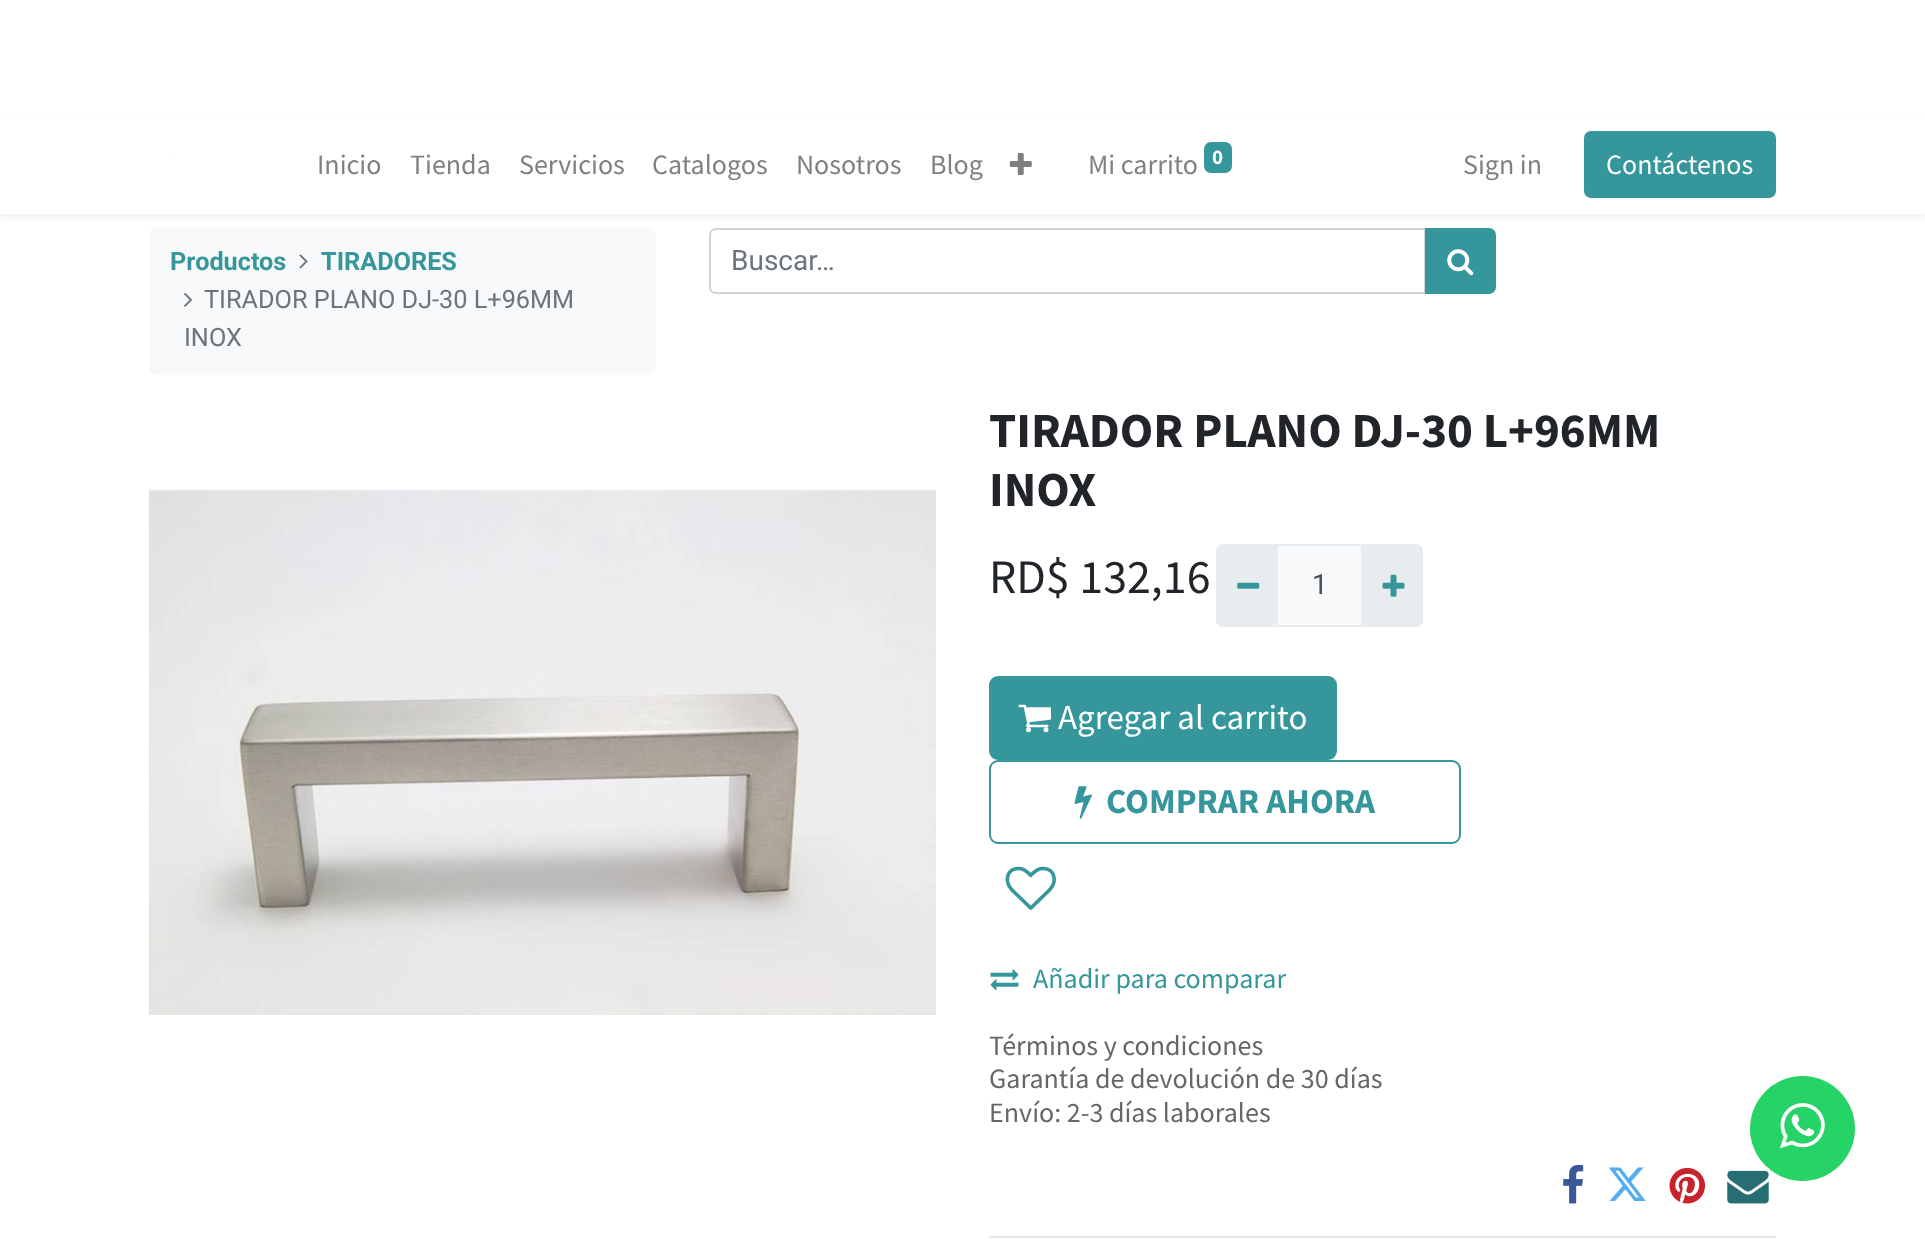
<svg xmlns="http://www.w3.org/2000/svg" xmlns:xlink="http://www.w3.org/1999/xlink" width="1925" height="1251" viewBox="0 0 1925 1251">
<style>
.cls-1{font:28px Source Sans Pro;fill:#808080}
.cls-2{font:bold 21px Source Sans Pro;fill:#ffffff}
.cls-3{font:28px Source Sans Pro;fill:#ffffff}
.cls-4{font:bold 25.25px Roboto;fill:#35979c}
.cls-5{font:25.25px Roboto;fill:#6c757d}
.cls-6{font:28px Roboto;fill:#6c757d}
.cls-7{font:bold 49px Source Sans Pro;fill:#212529}
.cls-8{font:48px Source Sans Pro;fill:#212529}
.cls-9{font:28px Roboto;fill:#495057}
.cls-10{font:35px Source Sans Pro;fill:#ffffff}
.cls-11{font:bold 35px Source Sans Pro;fill:#35979c}
.cls-12{font:28px Source Sans Pro;fill:#35979c}
.cls-13{font:28px Source Sans Pro;fill:#646669}
</style>
<rect width="100%" height="100%" fill="#ffffff"/>
<rect fill="#f8f9fa" x="149" y="228" width="507" height="147" rx="7"/>
<path fill="none" stroke="#ced4da" stroke-width="2" d="M716 229H1425V293H716C712.5 293 710 290.5 710 287V235C710 231.5 712.5 229 716 229Z"/>
<path fill="#35979c" stroke="#35979c" stroke-width="2" d="M1426 229H1489C1492.5 229 1495 231.5 1495 235V287C1495 290.5 1492.5 293 1489 293H1426Z"/>
<rect fill="#000000" fill-opacity="0.07" filter="blur(3.5px)" x="0" y="119" width="1925" height="98"/>
<rect fill="#ffffff" x="0" y="116" width="1925" height="98"/>
<rect fill="#fafafa" x="169" y="154" width="3" height="1"/>
<image xlink:href="image0.png" x="1009" y="153" width="23" height="22"/>
<rect fill="#35979c" x="1204" y="142" width="28" height="31" rx="7"/>
<rect fill="#35979c" stroke="#35979c" stroke-width="2" x="1585" y="132" width="190" height="65" rx="6"/>
<image xlink:href="image1.png" x="299" y="254" width="9" height="15"/>
<image xlink:href="image2.png" x="184" y="293" width="8" height="14"/>
<image xlink:href="image3.png" x="1447" y="249" width="27" height="27"/>
<image xlink:href="image4.png" x="149" y="489" width="787" height="526"/>
<rect fill="#f8f9fa" stroke="#e9ecef" stroke-width="2" x="1277" y="545" width="85" height="81"/>
<path fill="#e9ecef" d="M1223 544H1278V627H1223C1219 627 1216 624 1216 620V551C1216 547 1219 544 1223 544Z"/>
<image xlink:href="image5.png" x="1237" y="582" width="23" height="7"/>
<path fill="#e9ecef" d="M1362 544H1416C1420 544 1423 547 1423 551V620C1423 624 1420 627 1416 627H1362Z"/>
<image xlink:href="image6.png" x="1382" y="574" width="23" height="23"/>
<rect fill="#35979c" stroke="#35979c" stroke-width="2" x="990" y="677" width="346" height="82" rx="8"/>
<image xlink:href="image7.png" x="1018" y="704" width="33" height="29"/>
<rect fill="none" stroke="#35979c" stroke-width="2" x="990" y="761" width="470" height="82" rx="8"/>
<image xlink:href="image8.png" x="1074" y="786" width="18" height="33"/>
<image xlink:href="image9.png" x="1005" y="866" width="51" height="44"/>
<image xlink:href="image10.png" x="990" y="969" width="29" height="22"/>
<image xlink:href="image11.png" x="1563" y="1164" width="21" height="40"/>
<image xlink:href="image12.png" x="1608" y="1167" width="38" height="34"/>
<image xlink:href="image13.png" x="1669" y="1167" width="37" height="37"/>
<image xlink:href="image14.png" x="1727" y="1170" width="42" height="34"/>
<rect fill="#e6e6e6" x="989" y="1236" width="787" height="2"/>
<circle fill="#25d366" cx="1802.5" cy="1128.5" r="52.5"/>
<image xlink:href="image15.png" x="1779" y="1103" width="46" height="46"/>
<text class="cls-1" x="317" y="174">Inicio</text>
<text class="cls-1" x="410" y="174">Tienda</text>
<text class="cls-1" x="519" y="174">Servicios</text>
<text class="cls-1" x="652" y="174">Catalogos</text>
<text class="cls-1" x="796" y="174">Nosotros</text>
<text class="cls-1" x="930" y="174">Blog</text>
<text class="cls-1" x="1088" y="174">Mi carrito</text>
<text class="cls-2" x="1212" y="164">0</text>
<text class="cls-1" x="1463" y="174">Sign in</text>
<text class="cls-3" x="1606" y="174">Contáctenos</text>
<text class="cls-4" x="170" y="270">Productos</text>
<text class="cls-4" x="321" y="270">TIRADORES</text>
<text class="cls-5" x="204" y="308">TIRADOR PLANO DJ-30 L+96MM</text>
<text class="cls-5" x="184" y="346">INOX</text>
<text class="cls-6" x="731" y="270">Buscar…</text>
<text class="cls-7"><tspan x="989" y="447">TIRADOR PLANO DJ-30 L+96MM</tspan><tspan x="989" y="506">INOX</tspan></text>
<text class="cls-8" x="989" y="593">RD$ 132,16</text>
<text class="cls-9" x="1312" y="594">1</text>
<text class="cls-10" x="1058" y="729">Agregar al carrito</text>
<text class="cls-11" x="1106" y="813">COMPRAR AHORA</text>
<text class="cls-12" x="1033" y="988">Añadir para comparar</text>
<text class="cls-13"><tspan x="989" y="1055">Términos y condiciones</tspan><tspan x="989" y="1088">Garantía de devolución de 30 días</tspan><tspan x="989" y="1122">Envío: 2-3 días laborales</tspan></text>
</svg>
